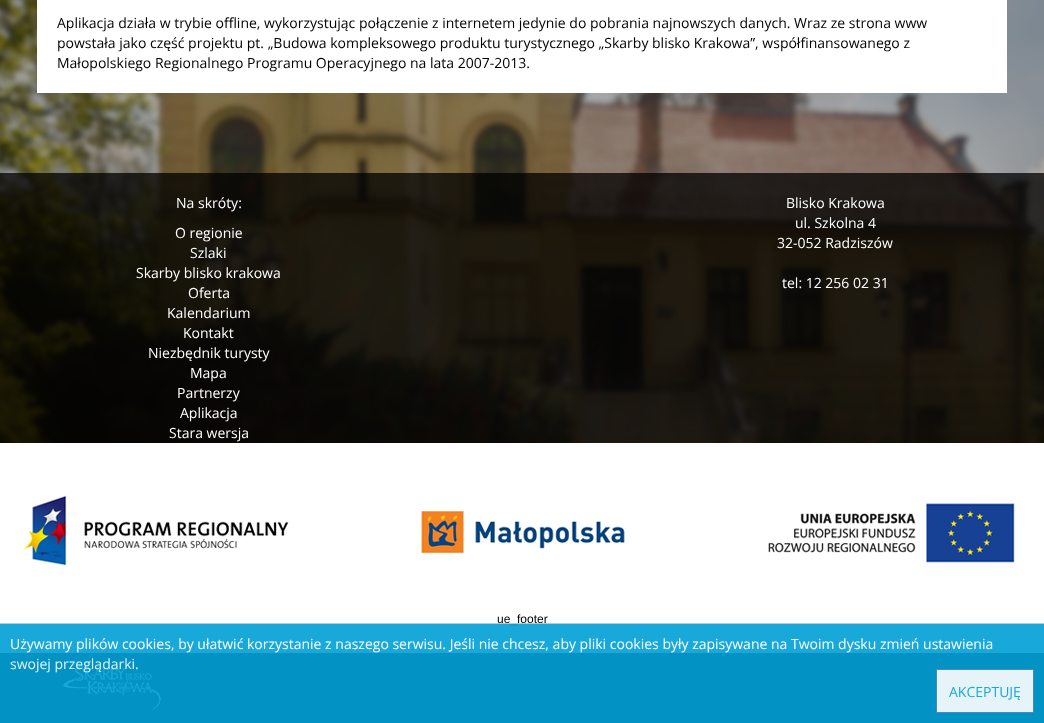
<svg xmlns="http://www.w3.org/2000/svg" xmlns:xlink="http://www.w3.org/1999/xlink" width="1044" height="723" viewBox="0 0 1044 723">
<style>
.cls-1{font:14px Open Sans;fill:#000000}
.cls-2{font:14px Open Sans;fill:#ffffff}
.cls-3{font:12px Liberation Sans;fill:#000000}
.cls-4{font:14px Open Sans;fill:#e6f4f9}
.cls-5{font:14px Open Sans;fill:#17a7da}
</style>
<rect width="100%" height="100%" fill="#ffffff"/>
<image xlink:href="image0.png" x="0" y="0" width="1044" height="443"/>
<rect fill="#ffffff" x="37" y="0" width="970" height="93"/>
<rect fill="#000000" fill-opacity="0.75" x="0" y="173" width="1044" height="270"/>
<image xlink:href="image1.png" x="23" y="495" width="992" height="71"/>
<rect fill="#202020" x="0" y="653" width="1044" height="70"/>
<image xlink:href="image2.png" x="63" y="666" width="98" height="44"/>
<text class="cls-1"><tspan x="57" y="28">Aplikacja działa w trybie offline, wykorzystując połączenie z internetem jedynie do pobrania najnowszych danych. Wraz ze strona www</tspan><tspan x="57" y="48">powstała jako część projektu pt. „Budowa kompleksowego produktu turystycznego „Skarby blisko Krakowa”, współfinansowanego z</tspan><tspan x="57" y="68">Małopolskiego Regionalnego Programu Operacyjnego na lata 2007-2013.</tspan></text>
<text class="cls-2" x="176" y="208">Na skróty:</text>
<text class="cls-2" x="175" y="238">O regionie</text>
<text class="cls-2" x="190" y="258">Szlaki</text>
<text class="cls-2" x="136" y="278">Skarby blisko krakowa</text>
<text class="cls-2" x="188" y="298">Oferta</text>
<text class="cls-2" x="167" y="318">Kalendarium</text>
<text class="cls-2" x="183" y="338">Kontakt</text>
<text class="cls-2" x="148" y="358">Niezbędnik turysty</text>
<text class="cls-2" x="190" y="378">Mapa</text>
<text class="cls-2" x="177" y="398">Partnerzy</text>
<text class="cls-2" x="180" y="418">Aplikacja</text>
<text class="cls-2" x="169" y="438">Stara wersja</text>
<text class="cls-2" x="786" y="208">Blisko Krakowa</text>
<text class="cls-2" x="795" y="228">ul. Szkolna 4</text>
<text class="cls-2" x="777" y="248">32-052 Radziszów</text>
<text class="cls-2" x="782" y="288">tel: 12 256 02 31</text>
<text class="cls-3" x="497" y="623">ue_footer</text>
<rect fill="#009ed6" fill-opacity="0.9" x="0" y="624" width="1044" height="99"/>
<rect fill="#bac8cd" x="0" y="623" width="1044" height="1"/>
<text class="cls-2" x="10" y="649">Używamy plików cookies, by ułatwić korzystanie z naszego serwisu. Jeśli nie chcesz, aby pliki cookies były zapisywane na Twoim dysku zmień ustawienia</text>
<text class="cls-4" x="10" y="669">swojej przeglądarki.</text>
<rect fill="#ffffff" fill-opacity="0.9" stroke="#478ac3" x="936.5" y="669.5" width="97" height="43"/>
<text class="cls-5" x="949" y="697">AKCEPTUJĘ</text>
</svg>
